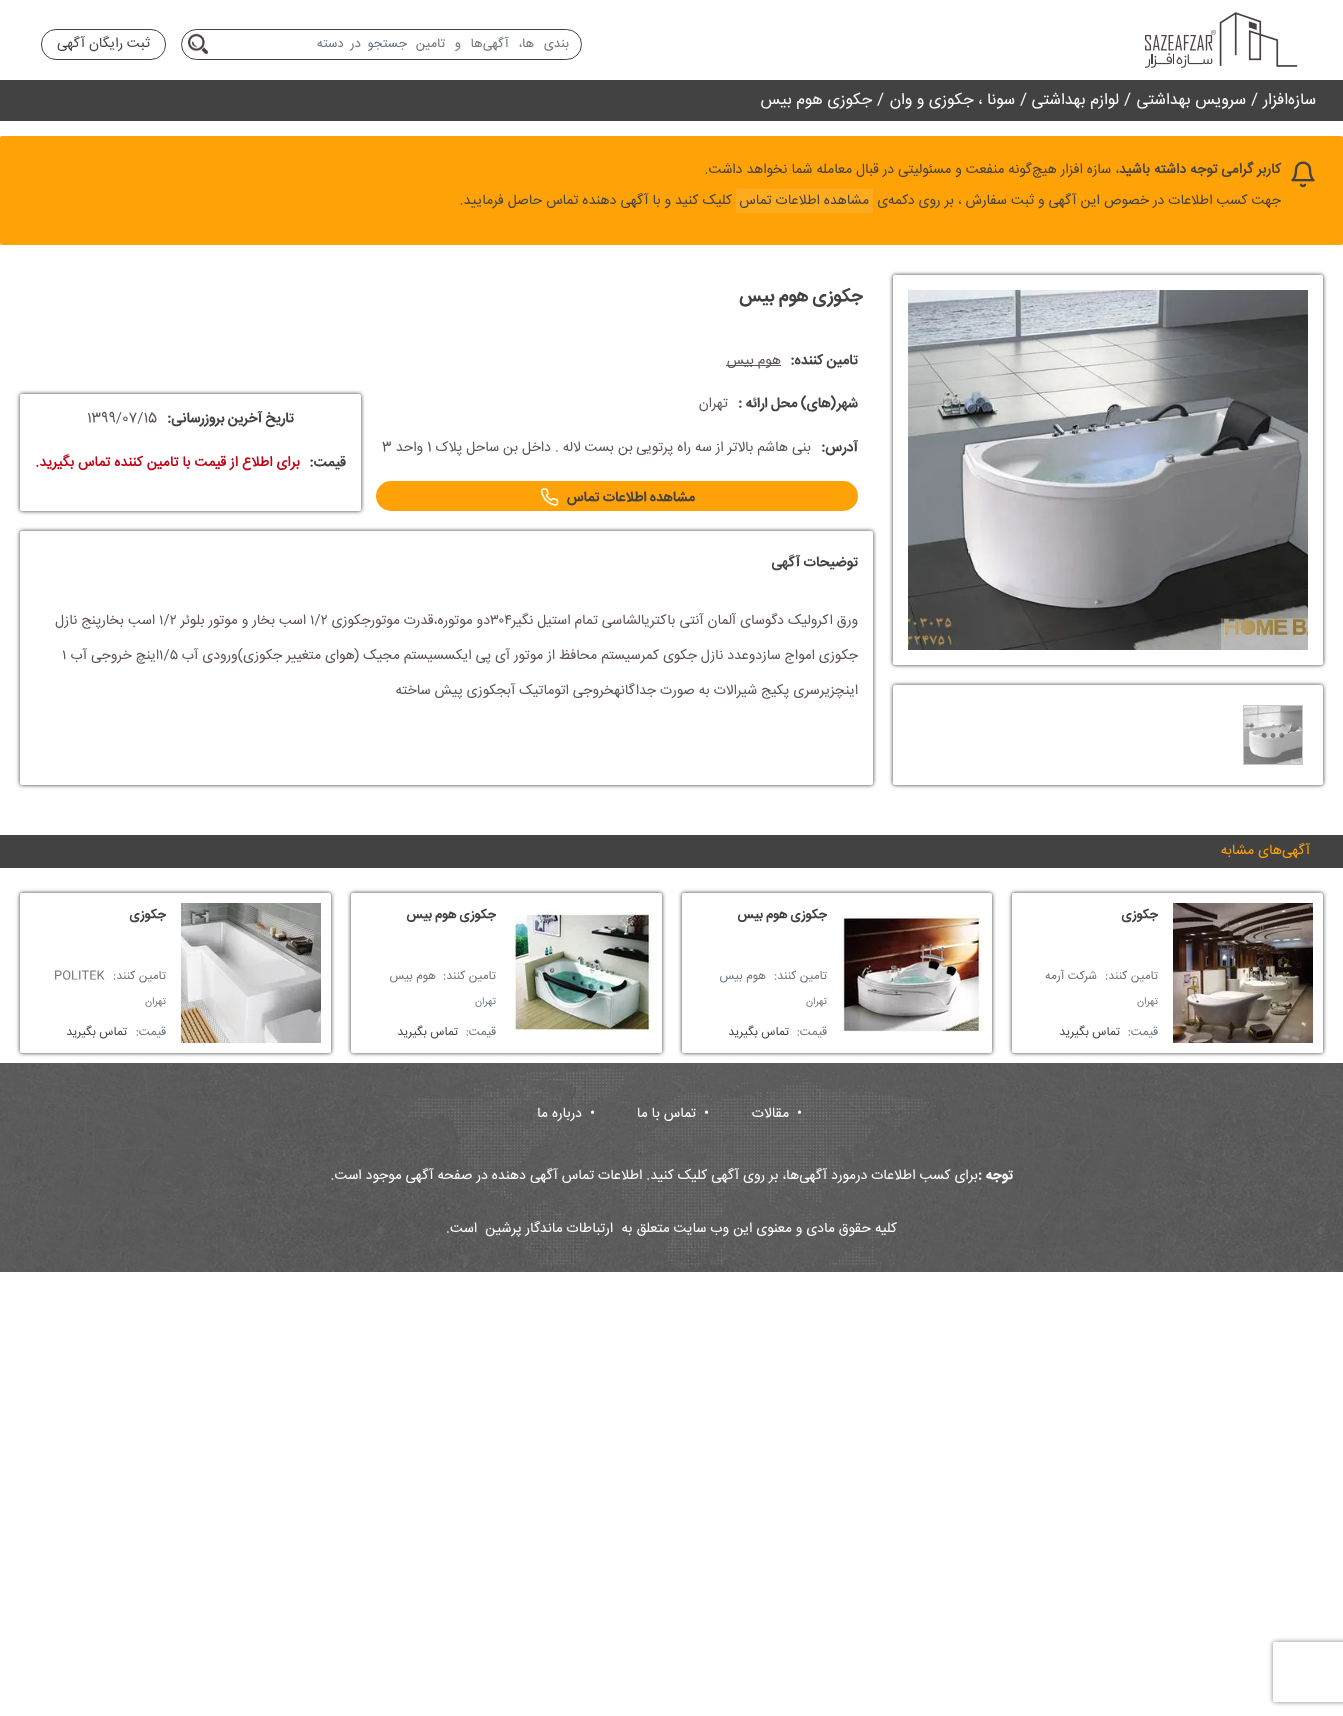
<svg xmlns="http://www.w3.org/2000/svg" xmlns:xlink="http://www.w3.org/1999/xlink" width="1343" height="1716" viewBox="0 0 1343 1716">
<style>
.cls-1{font:13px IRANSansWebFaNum;direction:rtl;fill:#6c757d}
.cls-2{font:14px IRANSansWebFaNum;direction:rtl;fill:#424242}
.cls-3{font:16px IRANSansWebFaNum;direction:rtl;fill:#ffffff}
.cls-4{font:16px IRANSansWebFaNum;fill:#ffffff}
.cls-5{font:bold 14px 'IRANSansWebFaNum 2';direction:rtl;fill:#424242}
.cls-6{font:bold 18px IRANSansWebFaNum;direction:rtl;fill:#424242}
.cls-7{font:bold 14px IRANSansWebFaNum;direction:rtl;fill:#424242}
.cls-8{font:14px IRANSansWebFaNum;direction:rtl;fill:#5f5355}
.cls-9{font:14px IRANSansWebFaNum;fill:#5f5355}
.cls-10{font:bold 14px 'IRANSansWebFaNum 2';direction:rtl;fill:#c20012}
.cls-11{font:14px IRANSansWebFaNum;direction:rtl;fill:#ffa207}
.cls-12{font:bold 13px IRANSansWebFaNum;direction:rtl;fill:#424242}
.cls-13{font:12px IRANSansWebFaNum;direction:rtl;fill:#6c757d}
.cls-14{font:10px IRANSansWebFaNum;direction:rtl;fill:#6c757d}
.cls-15{font:12px IRANSansWebFaNum;direction:rtl;fill:#424242}
.cls-16{font:12px IRANSansWebFaNum;fill:#6c757d}
.cls-17{font:14px IRANSansWebFaNum;fill:#ffffff}
.cls-18{font:14px IRANSansWebFaNum;direction:rtl;fill:#ffffff}
.cls-19{font:bold 14px IRANSansWebFaNum;direction:rtl;fill:#ffffff}
</style>
<defs>
<clipPath id="clip1"><path d="M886 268H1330V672H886ZM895 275H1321C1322 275 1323 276 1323 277V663C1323 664 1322 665 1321 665H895C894 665 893 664 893 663V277C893 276 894 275 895 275Z" clip-rule="evenodd"/></clipPath>
<clipPath id="clip2"><path d="M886 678H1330V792H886ZM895 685H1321C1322 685 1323 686 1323 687V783C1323 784 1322 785 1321 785H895C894 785 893 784 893 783V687C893 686 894 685 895 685Z" clip-rule="evenodd"/></clipPath>
<clipPath id="clip3"><path d="M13 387H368V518H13ZM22 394H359C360 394 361 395 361 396V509C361 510 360 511 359 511H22C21 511 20 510 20 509V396C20 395 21 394 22 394Z" clip-rule="evenodd"/></clipPath>
<clipPath id="clip4"><path d="M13 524H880V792H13ZM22 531H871C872 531 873 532 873 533V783C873 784 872 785 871 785H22C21 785 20 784 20 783V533C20 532 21 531 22 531Z" clip-rule="evenodd"/></clipPath>
<clipPath id="clip5"><path d="M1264 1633H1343V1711H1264ZM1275 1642H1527C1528 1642 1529 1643 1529 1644V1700C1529 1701 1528 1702 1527 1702H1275C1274 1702 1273 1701 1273 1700V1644C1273 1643 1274 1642 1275 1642Z" clip-rule="evenodd"/></clipPath>
</defs>
<rect width="100%" height="100%" fill="#ffffff"/>
<image xlink:href="image0.png" x="1144" y="12" width="154" height="56"/>
<rect fill="none" stroke="#424242" x="181.5" y="29.5" width="400" height="30" rx="15"/>
<image xlink:href="image1.png" x="188" y="33" width="20" height="22"/>
<rect fill="none" stroke="#424242" x="41.5" y="29.5" width="124" height="30" rx="14.5"/>
<rect fill="#424242" x="0" y="80" width="1343" height="41"/>
<rect fill="#ffa207" x="0" y="136" width="1343" height="109" rx="2"/>
<image xlink:href="image2.png" x="1291" y="161" width="24" height="27"/>
<rect fill="#ffab20" x="736" y="189" width="137" height="24"/>
<g clip-path="url(#clip1)">
<rect fill="#000000" fill-opacity="0.8" filter="blur(2px)" x="893" y="275" width="430" height="390" rx="2"/>
</g>
<image xlink:href="image3.png" x="908" y="290" width="400" height="360"/>
<g clip-path="url(#clip2)">
<rect fill="#000000" fill-opacity="0.8" filter="blur(2px)" x="893" y="685" width="430" height="100" rx="2"/>
</g>
<rect fill="none" stroke="#c8c8c8" x="1243.5" y="705.5" width="59" height="59"/>
<image xlink:href="image4.png" x="1244" y="706" width="58" height="58"/>
<image xlink:href="image5.png" x="1261" y="733" width="24" height="5"/>
<rect fill="#5f5355" x="726" y="365" width="55" height="1"/>
<rect fill="#ffa207" x="376" y="481" width="482" height="30" rx="15"/>
<image xlink:href="image6.png" x="540" y="488" width="19" height="18"/>
<g clip-path="url(#clip3)">
<rect fill="#000000" fill-opacity="0.8" filter="blur(2px)" x="20" y="394" width="341" height="117" rx="2"/>
</g>
<g clip-path="url(#clip4)">
<rect fill="#000000" fill-opacity="0.8" filter="blur(2px)" x="20" y="531" width="853" height="254" rx="2"/>
</g>
<rect fill="#424242" x="0" y="835" width="1343" height="33"/>
<rect fill="#000000" fill-opacity="0.8" filter="blur(2px)" x="1012" y="893" width="311" height="160" rx="2"/>
<rect fill="#ffffff" x="1012" y="893" width="311" height="160" rx="2"/>
<image xlink:href="image7.png" x="1173" y="903" width="140" height="140"/>
<rect fill="#000000" fill-opacity="0.8" filter="blur(2px)" x="682" y="893" width="310" height="160" rx="2"/>
<rect fill="#ffffff" x="682" y="893" width="310" height="160" rx="2"/>
<image xlink:href="image8.png" x="842" y="915" width="140" height="118"/>
<rect fill="#000000" fill-opacity="0.8" filter="blur(2px)" x="351" y="893" width="311" height="160" rx="2"/>
<rect fill="#ffffff" x="351" y="893" width="311" height="160" rx="2"/>
<image xlink:href="image9.png" x="512" y="911" width="140" height="120"/>
<rect fill="#000000" fill-opacity="0.8" filter="blur(2px)" x="20" y="893" width="311" height="160" rx="2"/>
<rect fill="#ffffff" x="20" y="893" width="311" height="160" rx="2"/>
<image xlink:href="image10.png" x="181" y="903" width="140" height="140"/>
<image xlink:href="image11.png" x="0" y="1063" width="1343" height="209"/>
<image xlink:href="image12.png" x="408" y="1069" width="528" height="196"/>
<g clip-path="url(#clip5)">
<rect fill="#808080" filter="blur(2.5px)" x="1273" y="1642" width="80" height="60" rx="2"/>
</g>
<text class="cls-1" x="569" y="47" word-spacing="6">بندی ها، آگهی‌ها و تامین</text>
<text class="cls-1" x="407" y="47" word-spacing="3">جستجو در دسته</text>
<text class="cls-2" x="150" y="47">ثبت رایگان آگهی</text>
<text class="cls-3" x="1316" y="104">سازه‌افزار</text>
<text class="cls-4" x="1251" y="104">/</text>
<text class="cls-3" x="1246" y="104">سرویس بهداشتی</text>
<text class="cls-4" x="1124" y="104">/</text>
<text class="cls-3" x="1119" y="104">لوازم بهداشتی</text>
<text class="cls-4" x="1020" y="104">/</text>
<text class="cls-3" x="1015" y="104">سونا ، جکوزی و وان</text>
<text class="cls-4" x="877" y="104">/</text>
<text class="cls-3" x="872" y="104">جکوزی هوم بیس</text>
<text class="cls-5" x="1281" y="173">کاربر گرامی توجه داشته باشید</text>
<text class="cls-2" x="1119" y="173">، سازه افزار هیچ‌گونه منفعت و مسئولیتی در قبال معامله شما نخواهد داشت.</text>
<text class="cls-2" x="1281" y="204">جهت کسب اطلاعات در خصوص این آگهی و ثبت سفارش ، بر روی دکمه‌ی</text>
<text class="cls-2" x="869" y="204">مشاهده اطلاعات تماس</text>
<text class="cls-2" x="732" y="204">کلیک کنید و با آگهی دهنده تماس حاصل فرمایید.</text>
<text class="cls-6" x="863" y="301">جکوزی هوم بیس</text>
<text class="cls-7" x="858" y="364">تامین کننده:</text>
<text class="cls-8" x="781" y="364">هوم بیس</text>
<text class="cls-7" x="858" y="407">شهر(های) محل ارائه :</text>
<text class="cls-8" x="728" y="407">تهران</text>
<text class="cls-7" x="858" y="451">آدرس:</text>
<text class="cls-8" x="811" y="451">بنی هاشم بالاتر از سه راه پرتویی</text>
<text class="cls-8" x="633" y="451">بن بست لاله . داخل بن ساحل پلاک</text>
<text class="cls-9" x="427" y="451">1</text>
<text class="cls-8" x="423" y="451">واحد</text>
<text class="cls-9" x="382" y="451">3</text>
<text class="cls-7" x="695" y="501">مشاهده اطلاعات تماس</text>
<text class="cls-7" x="294" y="422">تاریخ آخرین بروزرسانی:</text>
<text class="cls-9" x="87" y="422">1399/07/15</text>
<text class="cls-7" x="346" y="466">قیمت:</text>
<text class="cls-10" x="300" y="466">برای اطلاع از قیمت با تامین کننده تماس بگیرید.</text>
<text class="cls-7" x="858" y="566">توضیحات آگهی</text>
<text class="cls-9" x="490" y="624">۳۰۴</text>
<text class="cls-8" x="858" y="624">ورق اکرولیک دگوسای آلمان آنتی باکتریالشاسی تمام استیل نگیر</text>
<text class="cls-8" x="490" y="624">دو موتوره،قدرت موتورجکوزی</text>
<text class="cls-9" x="310" y="624">۱/۲</text>
<text class="cls-8" x="306" y="624">اسب بخار و موتور بلوئر</text>
<text class="cls-9" x="159" y="624">۱/۲</text>
<text class="cls-8" x="155" y="624">اسب بخارپنج نازل</text>
<text class="cls-8" x="858" y="659">جکوزی امواج سازدوعدد نازل جکوی کمرسیستم محافظ از موتور آی پی ایکسسیستم مجیک (هوای متغییر جکوزی)ورودی آب</text>
<text class="cls-9" x="159" y="659">۱/۵</text>
<text class="cls-8" x="159" y="659">اینچ خروجی آب</text>
<text class="cls-9" x="62" y="659">۱</text>
<text class="cls-8" x="858" y="694">اینچزیرسری پکیج شیرالات به صورت جداگانهخروجی اتوماتیک آبجکوزی پیش ساخته</text>
<text class="cls-11" x="1310" y="854">آگهی‌های مشابه</text>
<text class="cls-12" x="1158" y="918">جکوزی</text>
<text class="cls-13" x="1158" y="979">تامین کنند:</text>
<text class="cls-13" x="1097" y="979">شرکت آرمه</text>
<text class="cls-14" x="1158" y="1004">تهران</text>
<text class="cls-13" x="1158" y="1035">قیمت:</text>
<text class="cls-15" x="1120" y="1035">تماس بگیرید</text>
<text class="cls-12" x="827" y="918">جکوزی هوم بیس</text>
<text class="cls-13" x="827" y="979">تامین کنند:</text>
<text class="cls-13" x="766" y="979">هوم بیس</text>
<text class="cls-14" x="827" y="1004">تهران</text>
<text class="cls-13" x="827" y="1035">قیمت:</text>
<text class="cls-15" x="789" y="1035">تماس بگیرید</text>
<text class="cls-12" x="496" y="918">جکوزی هوم بیس</text>
<text class="cls-13" x="496" y="979">تامین کنند:</text>
<text class="cls-13" x="436" y="979">هوم بیس</text>
<text class="cls-14" x="496" y="1004">تهران</text>
<text class="cls-13" x="496" y="1035">قیمت:</text>
<text class="cls-15" x="458" y="1035">تماس بگیرید</text>
<text class="cls-12" x="166" y="918">جکوزی</text>
<text class="cls-13" x="166" y="979">تامین کنند:</text>
<text class="cls-16" x="54" y="979">POLITEK</text>
<text class="cls-14" x="166" y="1004">تهران</text>
<text class="cls-13" x="166" y="1035">قیمت:</text>
<text class="cls-15" x="127" y="1035">تماس بگیرید</text>
<text class="cls-17" x="797" y="1117">•</text>
<text class="cls-18" x="789" y="1117">مقالات</text>
<text class="cls-17" x="704" y="1117">•</text>
<text class="cls-18" x="696" y="1117">تماس با ما</text>
<text class="cls-17" x="590" y="1117">•</text>
<text class="cls-18" x="582" y="1117">درباره ما</text>
<text class="cls-19" x="1013" y="1179">توجه :</text>
<text class="cls-18" x="978" y="1179">برای کسب اطلاعات درمورد آگهی‌ها، بر روی آگهی کلیک کنید. اطلاعات تماس آگهی دهنده در صفحه آگهی موجود است.</text>
<text class="cls-18" x="897" y="1232">کلیه حقوق مادی و معنوی این وب سایت متعلق به</text>
<text class="cls-18" x="613" y="1232">ارتباطات ماندگار پرشین</text>
<text class="cls-18" x="477" y="1232">است.</text>
</svg>
